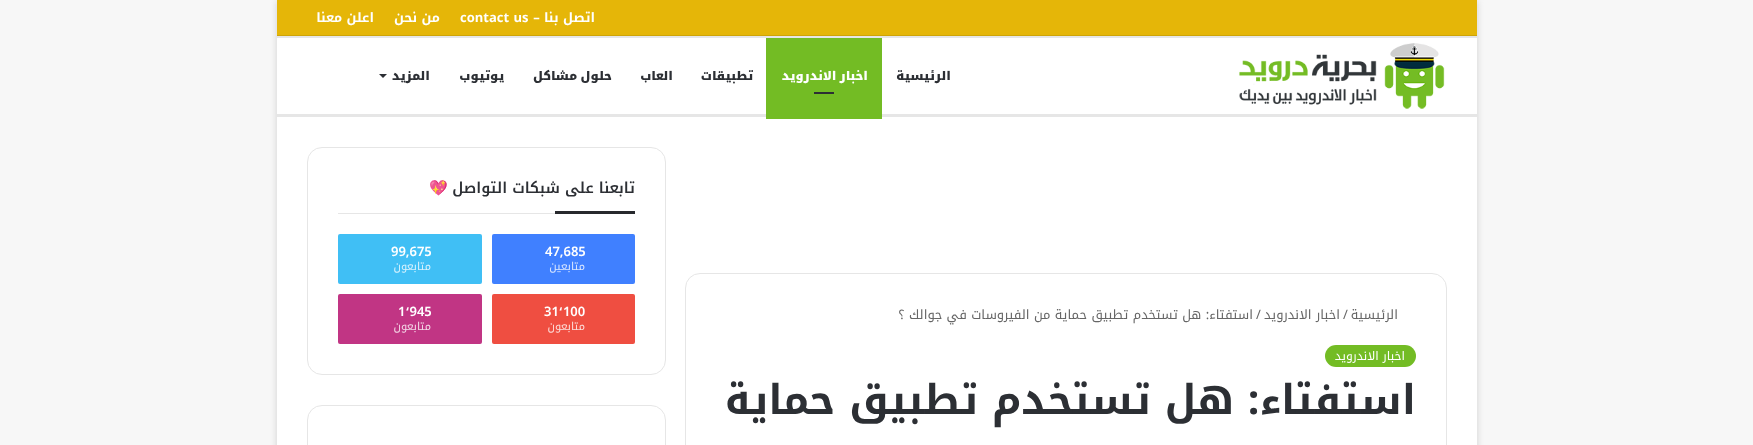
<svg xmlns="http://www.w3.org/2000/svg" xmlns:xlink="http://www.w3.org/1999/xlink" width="1753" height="445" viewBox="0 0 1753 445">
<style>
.cls-1{font:bold 13px Noto Kufi Arabic;direction:rtl;fill:#ffffff}
.cls-2{font:bold 13px Noto Kufi Arabic;fill:#ffffff}
.cls-3{font:900 12px Noto Kufi Arabic;letter-spacing:0.1px;direction:rtl;fill:#2c2f34}
.cls-4{font:900 12px Noto Kufi Arabic;letter-spacing:0.1px;direction:rtl;fill:#ffffff}
.cls-5{font:600 15px Noto Kufi Arabic;direction:rtl;fill:#2c2f34}
.cls-6{font:bold 15px Noto Color Emoji;direction:rtl;fill:#2c2f34}
.cls-7{font:600 13px Noto Kufi Arabic;fill:#ffffff}
.cls-8{font:11px Noto Kufi Arabic;direction:rtl;fill:#d9e6ff}
.cls-9{font:11px Noto Kufi Arabic;direction:rtl;fill:#d9f2fd}
.cls-10{font:11px Noto Kufi Arabic;direction:rtl;fill:#fcdcd9}
.cls-11{font:11px Noto Kufi Arabic;direction:rtl;fill:#f3d7e6}
.cls-12{font:13px Noto Kufi Arabic;direction:rtl;fill:#666666}
.cls-13{font:13px Noto Kufi Arabic;fill:#666666}
.cls-14{font:12px Noto Kufi Arabic;direction:rtl;fill:#ffffff}
.cls-15{font:bold 41px Noto Kufi Arabic;direction:rtl;fill:#2c2f34}
</style>
<rect width="100%" height="100%" fill="#f7f7f7"/>
<rect fill="#ababab" fill-opacity="0.5" filter="blur(3.5px)" x="277" y="1" width="1200" height="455"/>
<rect fill="#ffffff" x="277" y="38" width="1200" height="407"/>
<rect fill="#e5b608" x="277" y="0" width="1200" height="35"/>
<rect fill="#cea407" x="277" y="35" width="1200" height="1"/>
<rect fill="#e6e6e6" x="277" y="36" width="1200" height="2"/>
<rect fill="#e6e6e6" x="277" y="114" width="1200" height="3"/>
<image xlink:href="image0.png" x="1239" y="43" width="206" height="66"/>
<rect fill="#73bc24" x="766" y="38" width="116" height="81"/>
<rect fill="#2c2f34" x="814" y="92" width="20" height="2"/>
<path fill="#2c2f34" d="M379 74H387L383 78Z"/>
<rect fill="none" stroke="#e6e6e6" x="307.5" y="147.5" width="358" height="227" rx="14.5"/>
<rect fill="#e6e6e6" x="338" y="213" width="217" height="1"/>
<rect fill="#27292d" x="555" y="211" width="80" height="3"/>
<rect fill="#4080ff" x="492" y="234" width="143" height="50" rx="2"/>
<rect fill="#40bff5" x="338" y="234" width="144" height="50" rx="2"/>
<rect fill="#ef4e41" x="492" y="294" width="143" height="50" rx="2"/>
<rect fill="#c13584" x="338" y="294" width="144" height="50" rx="2"/>
<rect fill="none" stroke="#e6e6e6" x="307.5" y="405.5" width="358" height="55" rx="14.5"/>
<rect fill="none" stroke="#e6e6e6" x="685.5" y="273.5" width="761" height="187" rx="14.5"/>
<rect fill="#73bc24" x="1325" y="345" width="91" height="22" rx="11"/>
<text class="cls-1" x="595" y="22">اتصل بنا –</text>
<text class="cls-2" x="460" y="22">contact us</text>
<text class="cls-1" x="440" y="22">من نحن</text>
<text class="cls-1" x="374" y="22">اعلن معنا</text>
<text class="cls-3" x="951" y="80">الرئيسية</text>
<text class="cls-4" x="868" y="80" word-spacing="-1">اخبار الاندرويد</text>
<text class="cls-3" x="753" y="80">تطبيقات</text>
<text class="cls-3" x="673" y="80">العاب</text>
<text class="cls-3" x="612" y="80" word-spacing="-1">حلول مشاكل</text>
<text class="cls-3" x="504" y="80">يوتيوب</text>
<text class="cls-3" x="430" y="80">المزيد</text>
<text class="cls-5" x="635" y="193">تابعنا على شبكات التواصل</text>
<text class="cls-6" x="448" y="193">💖</text>
<text class="cls-7" x="545" y="256">47,685</text>
<text class="cls-8" x="585" y="270">متابعين</text>
<text class="cls-7" x="391" y="256">99,675</text>
<text class="cls-9" x="431" y="270">متابعون</text>
<text class="cls-7" x="544" y="316">31٬100</text>
<text class="cls-10" x="585" y="330">متابعون</text>
<text class="cls-7" x="398" y="316">1٬945</text>
<text class="cls-11" x="431" y="330">متابعون</text>
<text class="cls-12" x="1398" y="319">الرئيسية</text>
<text class="cls-13" x="1343" y="319">/</text>
<text class="cls-12" x="1340" y="319">اخبار الاندرويد</text>
<text class="cls-13" x="1256" y="319">/</text>
<text class="cls-12" x="1253" y="319">استفتاء: هل تستخدم تطبيق حماية من الفيروسات في جوالك ؟</text>
<text class="cls-14" x="1405" y="360">اخبار الاندرويد</text>
<text class="cls-15" x="1416" y="414">استفتاء: هل تستخدم تطبيق حماية</text>
</svg>
